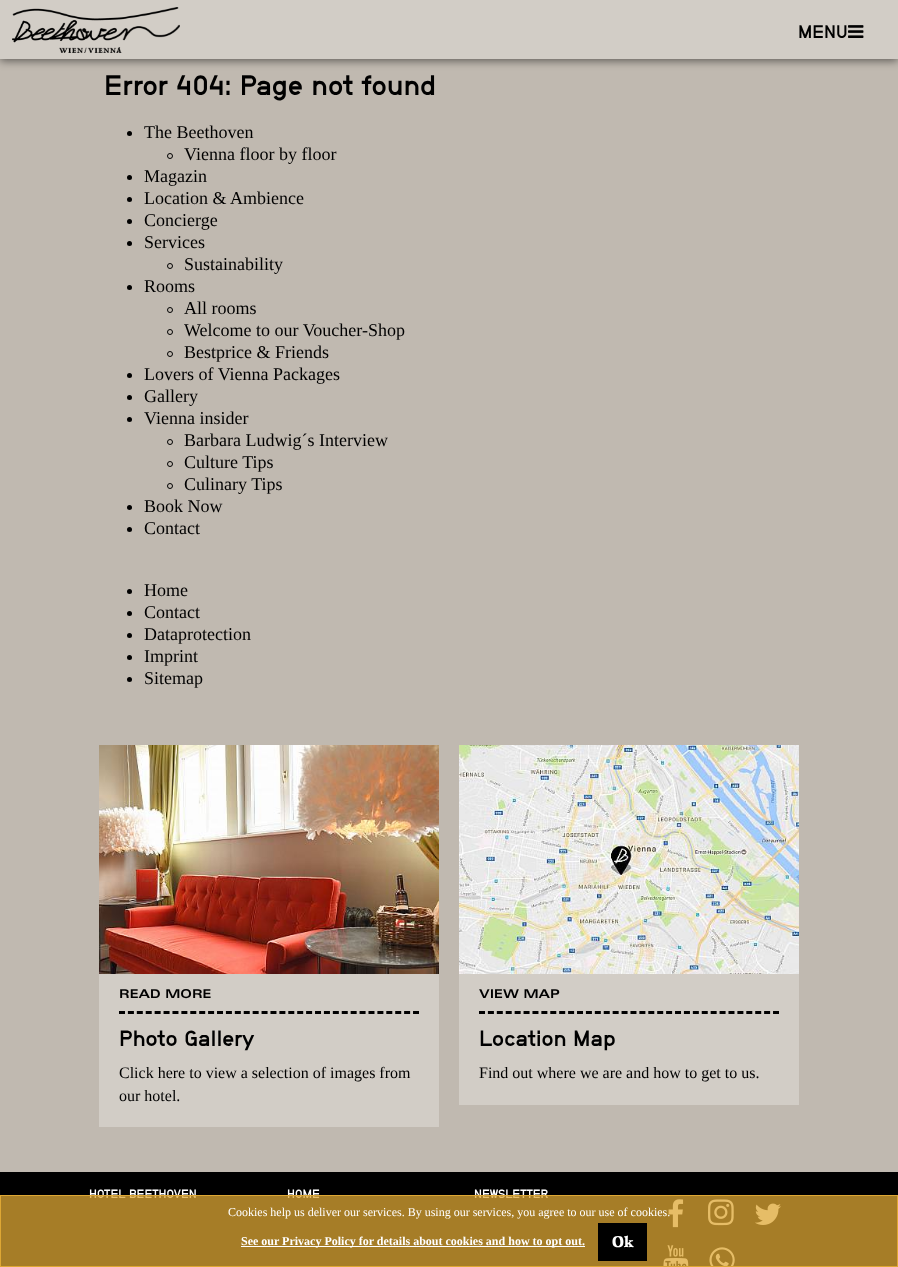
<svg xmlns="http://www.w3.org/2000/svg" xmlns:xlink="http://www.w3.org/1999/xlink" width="898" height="1267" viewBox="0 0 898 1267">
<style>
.cls-1{font:bold 18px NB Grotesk;fill:#000000}
.cls-2{font:bold 28px NB Grotesk;fill:#000000}
.cls-3{font:18px Liberation Serif;fill:#000000}
.cls-4{font:12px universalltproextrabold;fill:#000000}
.cls-5{font:bold 22px NB Grotesk;fill:#000000}
.cls-6{font:16px Liberation Serif;fill:#000000}
.cls-7{font:bold 12px NB Grotesk;fill:#ffffff}
.cls-8{font:12px Liberation Serif;fill:#ffffff}
.cls-9{font:bold 12px Liberation Serif;fill:#ffffff}
.cls-10{font:16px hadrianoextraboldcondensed;fill:#ffffff}
</style>
<rect width="100%" height="100%" fill="#c0b9b0"/>
<rect fill="#000000" fill-opacity="0.5" filter="blur(4px)" x="0" y="2" width="898" height="59"/>
<rect fill="#d2cdc6" x="0" y="0" width="898" height="59"/>
<image xlink:href="image0.png" x="12" y="7" width="168" height="46"/>
<image xlink:href="image1.png" x="848" y="25" width="16" height="13"/>
<circle fill="#000000" cx="129.5" cy="133.5" r="2.5"/>
<circle fill="none" stroke="#000000" cx="170" cy="156" r="2.5"/>
<circle fill="#000000" cx="129.5" cy="177.5" r="2.5"/>
<circle fill="#000000" cx="129.5" cy="199.5" r="2.5"/>
<circle fill="#000000" cx="129.5" cy="221.5" r="2.5"/>
<circle fill="#000000" cx="129.5" cy="243.5" r="2.5"/>
<circle fill="none" stroke="#000000" cx="170" cy="266" r="2.5"/>
<circle fill="#000000" cx="129.5" cy="287.5" r="2.5"/>
<circle fill="none" stroke="#000000" cx="170" cy="310" r="2.5"/>
<circle fill="none" stroke="#000000" cx="170" cy="332" r="2.5"/>
<circle fill="none" stroke="#000000" cx="170" cy="354" r="2.5"/>
<circle fill="#000000" cx="129.5" cy="375.5" r="2.5"/>
<circle fill="#000000" cx="129.5" cy="397.5" r="2.5"/>
<circle fill="#000000" cx="129.5" cy="419.5" r="2.5"/>
<circle fill="none" stroke="#000000" cx="170" cy="442" r="2.5"/>
<circle fill="none" stroke="#000000" cx="170" cy="464" r="2.5"/>
<circle fill="none" stroke="#000000" cx="170" cy="486" r="2.5"/>
<circle fill="#000000" cx="129.5" cy="507.5" r="2.5"/>
<circle fill="#000000" cx="129.5" cy="529.5" r="2.5"/>
<circle fill="#000000" cx="129.5" cy="591.5" r="2.5"/>
<circle fill="#000000" cx="129.5" cy="613.5" r="2.5"/>
<circle fill="#000000" cx="129.5" cy="635.5" r="2.5"/>
<circle fill="#000000" cx="129.5" cy="657.5" r="2.5"/>
<circle fill="#000000" cx="129.5" cy="679.5" r="2.5"/>
<rect fill="#d2cdc6" x="99" y="974" width="340" height="153"/>
<image xlink:href="image2.png" x="99" y="745" width="340" height="229"/>
<path fill="none" stroke="#000000" stroke-width="3" stroke-dasharray="6 2.91" d="M119 1012.5H419"/>
<rect fill="#d2cdc6" x="459" y="974" width="340" height="131"/>
<image xlink:href="image3.png" x="459" y="745" width="340" height="229"/>
<path fill="none" stroke="#000000" stroke-width="3" stroke-dasharray="6 2.91" d="M479 1012.5H779"/>
<rect fill="#000000" x="0" y="1172" width="898" height="94"/>
<image xlink:href="image4.png" x="668" y="1199" width="16" height="29"/>
<image xlink:href="image5.png" x="708" y="1199" width="26" height="27"/>
<image xlink:href="image6.png" x="755" y="1203" width="26" height="22"/>
<image xlink:href="image7.png" x="663" y="1245" width="26" height="21"/>
<image xlink:href="image8.png" x="709" y="1247" width="26" height="19"/>
<text class="cls-1" x="798" y="38">MENU</text>
<text class="cls-2" x="104" y="95">Error 404: Page not found</text>
<text class="cls-3" x="144" y="138">The Beethoven</text>
<text class="cls-3" x="184" y="160">Vienna floor by floor</text>
<text class="cls-3"><tspan x="144" y="182">Magazin</tspan><tspan x="144" y="204">Location &amp; Ambience</tspan><tspan x="144" y="226">Concierge</tspan><tspan x="144" y="248">Services</tspan></text>
<text class="cls-3" x="184" y="270">Sustainability</text>
<text class="cls-3" x="144" y="292">Rooms</text>
<text class="cls-3"><tspan x="184" y="314">All rooms</tspan><tspan x="184" y="336">Welcome to our Voucher-Shop</tspan><tspan x="184" y="358">Bestprice &amp; Friends</tspan></text>
<text class="cls-3"><tspan x="144" y="380">Lovers of Vienna Packages</tspan><tspan x="144" y="402">Gallery</tspan><tspan x="144" y="424">Vienna insider</tspan></text>
<text class="cls-3"><tspan x="184" y="446">Barbara Ludwig´s Interview</tspan><tspan x="184" y="468">Culture Tips</tspan><tspan x="184" y="490">Culinary Tips</tspan></text>
<text class="cls-3"><tspan x="144" y="512">Book Now</tspan><tspan x="144" y="534">Contact</tspan></text>
<text class="cls-3"><tspan x="144" y="596">Home</tspan><tspan x="144" y="618">Contact</tspan><tspan x="144" y="640">Dataprotection</tspan><tspan x="144" y="662">Imprint</tspan><tspan x="144" y="684">Sitemap</tspan></text>
<text class="cls-4" x="119" y="998">READ MORE</text>
<text class="cls-5" x="119" y="1046">Photo Gallery</text>
<text class="cls-6"><tspan x="119" y="1078">Click here to view a selection of images from</tspan><tspan x="119" y="1101">our hotel.</tspan></text>
<text class="cls-4" x="479" y="998">VIEW MAP</text>
<text class="cls-5" x="479" y="1046">Location Map</text>
<text class="cls-6" x="479" y="1078">Find out where we are and how to get to us.</text>
<text class="cls-7" x="89" y="1198">HOTEL BEETHOVEN</text>
<text class="cls-7" x="287" y="1198">HOME</text>
<text class="cls-7" x="474" y="1198">NEWSLETTER</text>
<rect fill="#dea734" fill-opacity="0.75" stroke="#dea734" x="0.5" y="1195.5" width="897" height="71"/>
<text class="cls-8" x="228" y="1216">Cookies help us deliver our services. By using our services, you agree to our use of cookies.</text>
<rect fill="#ffffff" x="241" y="1246" width="344" height="1"/>
<text class="cls-9" x="241" y="1245">See our Privacy Policy for details about cookies and how to opt out.</text>
<rect fill="#000000" x="598" y="1223" width="49" height="38"/>
<text class="cls-10" x="612" y="1247">Ok</text>
</svg>
